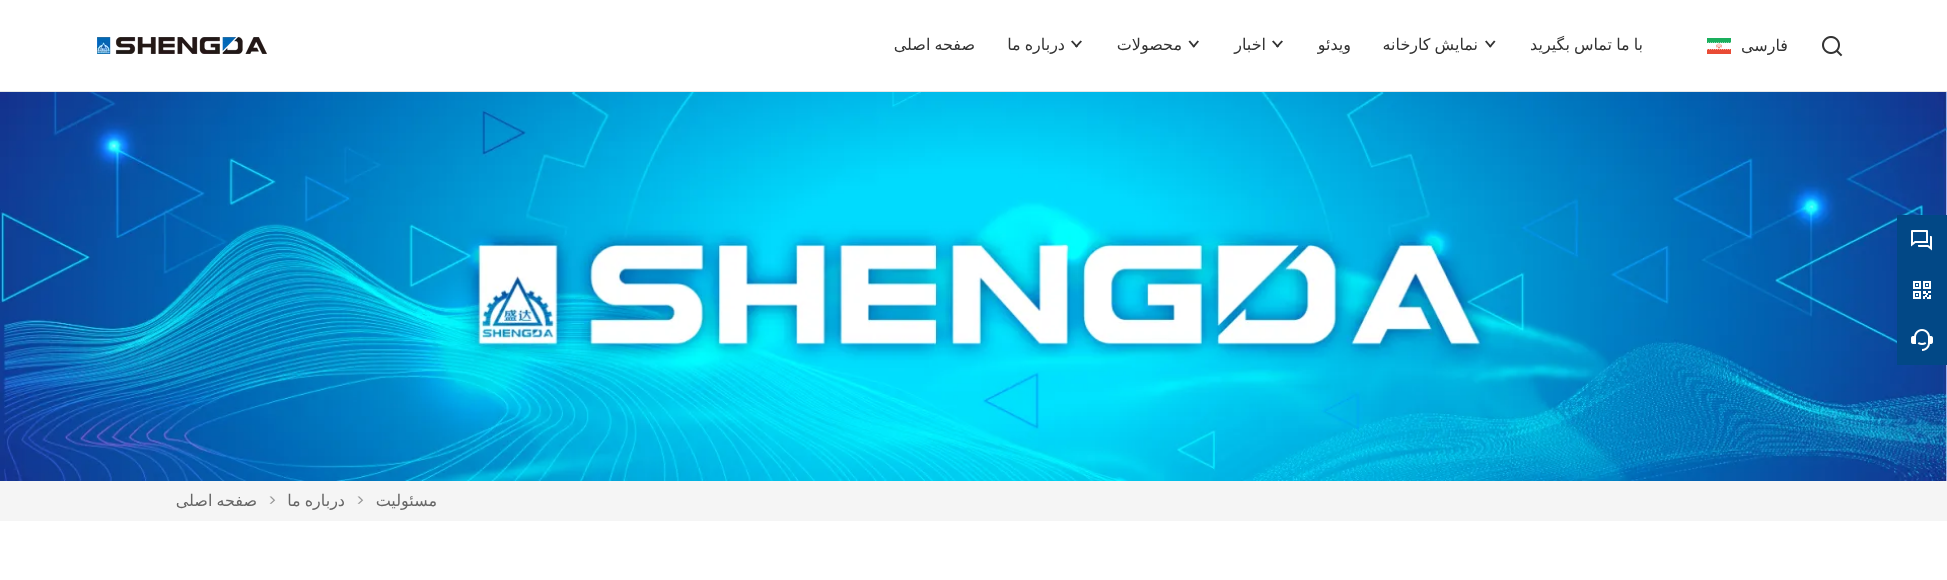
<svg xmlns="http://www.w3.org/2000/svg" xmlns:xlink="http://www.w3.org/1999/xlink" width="1947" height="580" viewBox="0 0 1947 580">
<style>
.cls-1{font:16px DejaVu Sans;direction:rtl;fill:#333333}
.cls-2{font:16px DejaVu Sans;direction:rtl;fill:#666666}
.cls-3{font:16px Poppins;fill:#999999}
</style>
<rect width="100%" height="100%" fill="#ffffff"/>
<rect fill="#e6e6e6" x="0" y="91" width="1947" height="1"/>
<image xlink:href="image0.png" x="1822" y="36" width="21" height="21"/>
<image xlink:href="image1.png" x="1707" y="38" width="24" height="16"/>
<path fill="#333333" d="M1486.5 40.5L1491.5 46.5L1490 47.5L1485 41.5Z"/>
<path fill="#333333" d="M1489 46.5L1494 40.5L1495.5 41.5L1490.5 47.5Z"/>
<path fill="#333333" d="M1273.5 40.5L1279 46.5L1277.5 47.5L1272 41.5Z"/>
<path fill="#333333" d="M1276 46.5L1281.5 40.5L1283 41.5L1277.5 47.5Z"/>
<path fill="#333333" d="M1190 40.5L1195 46.5L1193.5 47.5L1188.5 41.5Z"/>
<path fill="#333333" d="M1192.5 46.5L1197.5 40.5L1199 41.5L1194 47.5Z"/>
<path fill="#333333" d="M1072.5 40.5L1078 46.5L1076.5 47.5L1071 41.5Z"/>
<path fill="#333333" d="M1075 46.5L1080.5 40.5L1082 41.5L1076.5 47.5Z"/>
<image xlink:href="image2.png" x="97" y="37" width="170" height="17"/>
<image xlink:href="image6.png" x="0" y="92" width="1947" height="389"/>
<rect fill="#024886" x="1897" y="215" width="50" height="150"/>
<image xlink:href="image3.png" x="1911" y="230" width="21" height="21"/>
<image xlink:href="image4.png" x="1913" y="281" width="18" height="18"/>
<image xlink:href="image5.png" x="1911" y="329" width="22" height="22"/>
<rect fill="#f5f5f5" x="0" y="481" width="1947" height="40"/>
<text class="cls-1" x="1788" y="51">فارسی</text>
<text class="cls-1" x="1643" y="50" word-spacing="-1">با ما تماس بگیرید</text>
<text class="cls-1" x="1478" y="50" word-spacing="-1">نمایش کارخانه</text>
<text class="cls-1" x="1351" y="50">ویدئو</text>
<text class="cls-1" x="1266" y="50">اخبار</text>
<text class="cls-1" x="1182" y="50">محصولات</text>
<text class="cls-1" x="1065" y="50" word-spacing="-1">درباره ما</text>
<text class="cls-1" x="975" y="50" word-spacing="-1">صفحه اصلی</text>
<text class="cls-2" x="437" y="506">مسئوليت</text>
<text class="cls-3" x="357" y="506">&gt;</text>
<text class="cls-2" x="345" y="506" word-spacing="-1">درباره ما</text>
<text class="cls-3" x="269" y="506">&gt;</text>
<text class="cls-2" x="257" y="506" word-spacing="-1">صفحه اصلی</text>
</svg>
